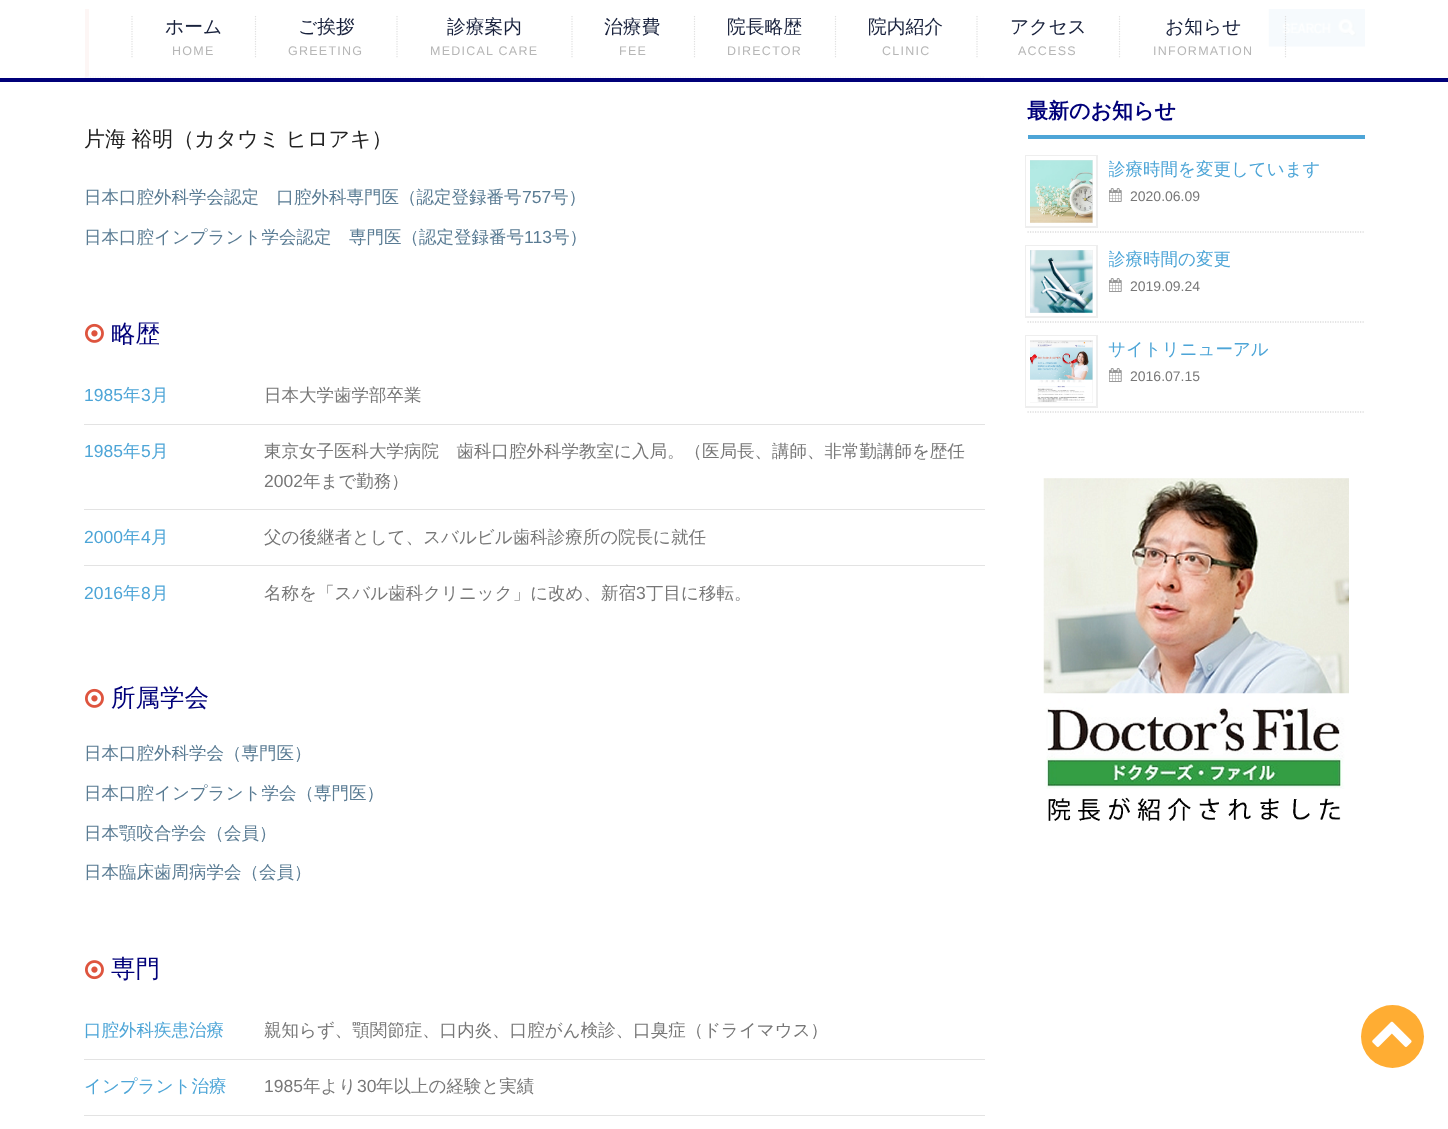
<svg xmlns="http://www.w3.org/2000/svg" xmlns:xlink="http://www.w3.org/1999/xlink" width="1448" height="1129" viewBox="0 0 1448 1129">
<style>
.cls-1{font:500 18.75px WenQuanYi Zen Hei;fill:#18213c}
.cls-2{font:12.5px Liberation Sans;letter-spacing:1.25px;fill:#b6b6b6}
.cls-3{font:500 21px WenQuanYi Zen Hei;fill:#222222}
.cls-4{font:500 17.5px WenQuanYi Zen Hei;fill:#597b93}
.cls-5{font:17.5px Liberation Sans;fill:#597b93}
.cls-6{font:500 24.5px WenQuanYi Zen Hei;fill:#000079}
.cls-7{font:17.5px Liberation Sans;fill:#4da5d7}
.cls-8{font:500 17.5px WenQuanYi Zen Hei;fill:#4da5d7}
.cls-9{font:500 17.5px WenQuanYi Zen Hei;fill:#777777}
.cls-10{font:17.5px Liberation Sans;fill:#777777}
.cls-11{font:bold 21px WenQuanYi Zen Hei;fill:#000079}
.cls-12{font:14px Liberation Sans;fill:#777777}
</style>
<defs>
<clipPath id="clip1"><rect x="1109" y="160" width="256" height="51"/></clipPath>
<clipPath id="clip2"><rect x="1109" y="250" width="256" height="51"/></clipPath>
</defs>
<rect width="100%" height="100%" fill="#ffffff"/>
<rect fill="#000079" x="0" y="78" width="1448" height="4"/>
<path fill="none" stroke="#e0e0e0" stroke-width="1.2" stroke-dasharray="1.25 1.25" d="M132 16V57.5"/>
<path fill="none" stroke="#e0e0e0" stroke-width="1.2" stroke-dasharray="1.25 1.25" d="M255.5 16V57.5"/>
<path fill="none" stroke="#e0e0e0" stroke-width="1.2" stroke-dasharray="1.25 1.25" d="M397 16V57.5"/>
<path fill="none" stroke="#e0e0e0" stroke-width="1.2" stroke-dasharray="1.25 1.25" d="M572 16V57.5"/>
<path fill="none" stroke="#e0e0e0" stroke-width="1.2" stroke-dasharray="1.25 1.25" d="M694.5 16V57.5"/>
<path fill="none" stroke="#e0e0e0" stroke-width="1.2" stroke-dasharray="1.25 1.25" d="M835.5 16V57.5"/>
<path fill="none" stroke="#e0e0e0" stroke-width="1.2" stroke-dasharray="1.25 1.25" d="M977 16V57.5"/>
<image xlink:href="image2.png" x="1268" y="9" width="97" height="38"/>
<path fill="none" stroke="#e0e0e0" stroke-width="1.2" stroke-dasharray="1.25 1.25" d="M1285.5 16V57.5"/>
<path fill="none" stroke="#e0e0e0" stroke-width="1.2" stroke-dasharray="1.25 1.25" d="M1119.5 16V57.5"/>
<path fill="none" stroke="#f2f2f8" stroke-width="1.2" stroke-dasharray="1.25 1.25" d="M85 77H985"/>
<path fill="#fdf6f5" d="M85 78V9H89V76Z"/>
<image xlink:href="image0.png" x="85" y="323" width="19" height="20"/>
<rect fill="#e3e3e3" x="84" y="424" width="901" height="1"/>
<rect fill="#e3e3e3" x="84" y="509" width="901" height="1"/>
<rect fill="#e3e3e3" x="84" y="565" width="901" height="1"/>
<image xlink:href="image0.png" x="85" y="688" width="19" height="20"/>
<image xlink:href="image1.png" x="85" y="960" width="19" height="20"/>
<rect fill="#e3e3e3" x="84" y="1059" width="901" height="1"/>
<rect fill="#e3e3e3" x="84" y="1115" width="901" height="1"/>
<rect fill="#4da5d7" x="1028" y="135" width="337" height="4"/>
<path fill="none" stroke="#cccccc" stroke-width="1.2" stroke-dasharray="1.25 1.25" d="M1027.5 232H1365"/>
<rect fill="none" stroke="#eeeeee" stroke-width="5" x="1027.5" y="157.5" width="68" height="68"/>
<rect fill="none" stroke="#ffffff" stroke-width="4" x="1028" y="158" width="66" height="66"/>
<rect fill="#eeeeee" x="1030" y="160" width="63" height="63"/>
<image xlink:href="image3.png" x="1030" y="160" width="63" height="63"/>
<image xlink:href="image4.png" x="1109" y="188" width="13" height="14"/>
<path fill="none" stroke="#cccccc" stroke-width="1.2" stroke-dasharray="1.25 1.25" d="M1027.5 322H1365"/>
<rect fill="none" stroke="#eeeeee" stroke-width="5" x="1027.5" y="247.5" width="68" height="68"/>
<rect fill="none" stroke="#ffffff" stroke-width="4" x="1028" y="248" width="66" height="66"/>
<rect fill="#eeeeee" x="1030" y="250" width="63" height="63"/>
<image xlink:href="image5.png" x="1030" y="250" width="63" height="63"/>
<image xlink:href="image4.png" x="1109" y="278" width="13" height="14"/>
<path fill="none" stroke="#cccccc" stroke-width="1.2" stroke-dasharray="1.25 1.25" d="M1027.5 412H1365"/>
<rect fill="none" stroke="#eeeeee" stroke-width="5" x="1027.5" y="337.5" width="68" height="68"/>
<rect fill="none" stroke="#ffffff" stroke-width="4" x="1028" y="338" width="66" height="66"/>
<rect fill="#eeeeee" x="1030" y="340" width="63" height="63"/>
<image xlink:href="image6.png" x="1030" y="340" width="63" height="63"/>
<image xlink:href="image4.png" x="1109" y="368" width="13" height="14"/>
<image xlink:href="image7.png" x="1043" y="478" width="306" height="343"/>
<circle fill="#ffad33" cx="1392.5" cy="1036.5" r="31.5"/>
<image xlink:href="image8.png" x="1372" y="1021" width="40" height="26"/>
<text class="cls-1" x="165" y="33">ホーム</text>
<text class="cls-2" x="172" y="55">HOME</text>
<text class="cls-1" x="298" y="33">ご挨拶</text>
<text class="cls-2" x="288" y="55">GREETING</text>
<text class="cls-1" x="447" y="33">診療案内</text>
<text class="cls-2" x="430" y="55">MEDICAL CARE</text>
<text class="cls-1" x="604" y="33">治療費</text>
<text class="cls-2" x="619" y="55">FEE</text>
<text class="cls-1" x="727" y="33">院長略歴</text>
<text class="cls-2" x="727" y="55">DIRECTOR</text>
<text class="cls-1" x="868" y="33">院内紹介</text>
<text class="cls-2" x="882" y="55">CLINIC</text>
<text class="cls-1" x="1010" y="33">アクセス</text>
<text class="cls-2" x="1018" y="55">ACCESS</text>
<text class="cls-1" x="1165" y="33">お知らせ</text>
<text class="cls-2" x="1153" y="55">INFORMATION</text>
<text class="cls-3" x="84" y="146" word-spacing="-1">片海 裕明（カタウミ ヒロアキ）</text>
<text class="cls-4" x="84" y="203">日本口腔外科学会認定　口腔外科専門医（認定登録番号</text>
<text class="cls-5" x="522" y="203">757</text>
<text class="cls-4" x="551" y="203">号）</text>
<text class="cls-4" x="84" y="243">日本口腔インプラント学会認定　専門医（認定登録番号</text>
<text class="cls-5" x="524" y="243">113</text>
<text class="cls-4" x="552" y="243">号）</text>
<text class="cls-6" x="111" y="342">略歴</text>
<text class="cls-7" x="84" y="401">1985</text>
<text class="cls-8" x="123" y="401">年</text>
<text class="cls-7" x="141" y="401">3</text>
<text class="cls-8" x="151" y="401">月</text>
<text class="cls-9" x="264" y="401">日本大学歯学部卒業</text>
<text class="cls-7" x="84" y="457">1985</text>
<text class="cls-8" x="123" y="457">年</text>
<text class="cls-7" x="141" y="457">5</text>
<text class="cls-8" x="151" y="457">月</text>
<text class="cls-9" x="264" y="457">東京女子医科大学病院　歯科口腔外科学教室に入局。（医局長、講師、非常勤講師を歴任</text>
<text class="cls-10" x="264" y="487">2002</text>
<text class="cls-9" x="303" y="487">年まで勤務）</text>
<text class="cls-7" x="84" y="543">2000</text>
<text class="cls-8" x="123" y="543">年</text>
<text class="cls-7" x="141" y="543">4</text>
<text class="cls-8" x="151" y="543">月</text>
<text class="cls-9" x="264" y="543">父の後継者として、スバルビル歯科診療所の院長に就任</text>
<text class="cls-7" x="84" y="599">2016</text>
<text class="cls-8" x="123" y="599">年</text>
<text class="cls-7" x="141" y="599">8</text>
<text class="cls-8" x="151" y="599">月</text>
<text class="cls-9" x="264" y="599">名称を「スバル歯科クリニック」に改め、新宿</text>
<text class="cls-10" x="636" y="599">3</text>
<text class="cls-9" x="646" y="599">丁目に移転。</text>
<text class="cls-6" x="111" y="706">所属学会</text>
<text class="cls-4" x="84" y="759">日本口腔外科学会（専門医）</text>
<text class="cls-4" x="84" y="799">日本口腔インプラント学会（専門医）</text>
<text class="cls-4" x="84" y="839">日本顎咬合学会（会員）</text>
<text class="cls-4" x="84" y="878">日本臨床歯周病学会（会員）</text>
<text class="cls-6" x="111" y="977">専門</text>
<text class="cls-8" x="84" y="1036">口腔外科疾患治療</text>
<text class="cls-9" x="264" y="1036">親知らず、顎関節症、口内炎、口腔がん検診、口臭症（ドライマウス）</text>
<text class="cls-8" x="84" y="1092">インプラント治療</text>
<text class="cls-10" x="264" y="1092">1985</text>
<text class="cls-9" x="303" y="1092">年より</text>
<text class="cls-10" x="357" y="1092">30</text>
<text class="cls-9" x="376" y="1092">年以上の経験と実績</text>
<text class="cls-11" x="1027" y="118">最新のお知らせ</text>
<g clip-path="url(#clip1)">
<text class="cls-8" x="1108" y="175">診療時間を変更しています</text>
</g>
<text class="cls-12" x="1130" y="201">2020.06.09</text>
<g clip-path="url(#clip2)">
<text class="cls-8" x="1108" y="265">診療時間の変更</text>
</g>
<text class="cls-12" x="1130" y="291">2019.09.24</text>
<text class="cls-8" x="1108" y="355">サイトリニューアル</text>
<text class="cls-12" x="1130" y="381">2016.07.15</text>
</svg>
